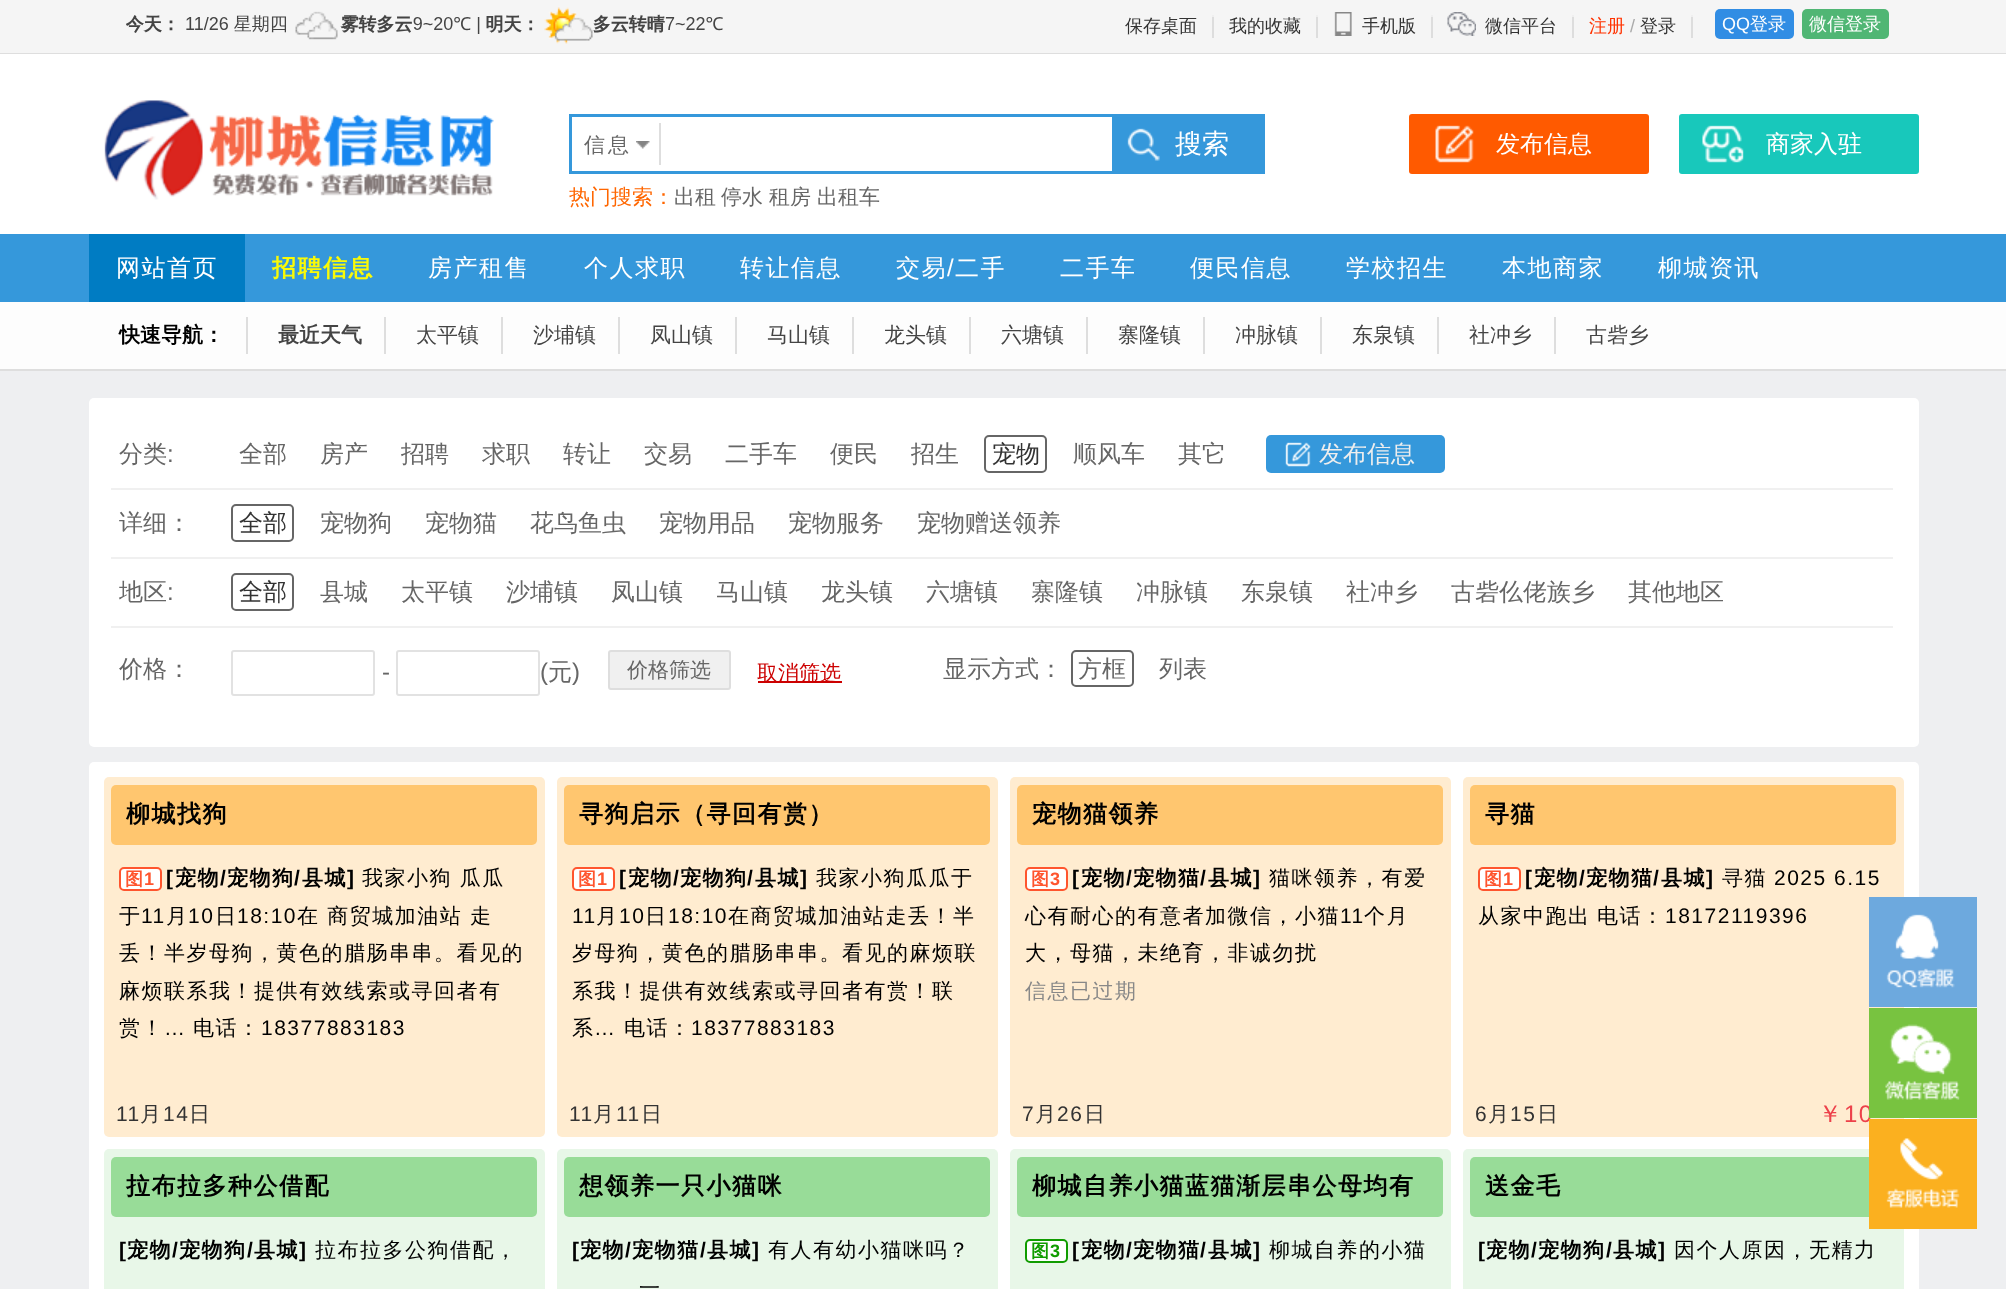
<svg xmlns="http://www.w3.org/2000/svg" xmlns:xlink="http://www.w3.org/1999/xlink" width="2006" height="1289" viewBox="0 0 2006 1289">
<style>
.cls-1{font:500 18px WenQuanYi Zen Hei;fill:#333333}
.cls-2{font:500 18px WenQuanYi Zen Hei;fill:#ff3300}
.cls-3{font:18px Liberation Sans;fill:#aaaaaa}
.cls-4{font:18px Liberation Sans;fill:#ffffff}
.cls-5{font:500 18px WenQuanYi Zen Hei;fill:#ffffff}
.cls-6{font:500 21px WenQuanYi Zen Hei;letter-spacing:3px;fill:#666666}
.cls-7{font:500 27px WenQuanYi Zen Hei;fill:#ffffff}
.cls-8{font:500 21px WenQuanYi Zen Hei;fill:#ff6600}
.cls-9{font:500 21px WenQuanYi Zen Hei;fill:#666666}
.cls-10{font:500 24px WenQuanYi Zen Hei;fill:#ffffff}
.cls-11{font:500 24px WenQuanYi Zen Hei;letter-spacing:1.5px;fill:#ffffff}
.cls-12{font:bold 24px WenQuanYi Zen Hei;letter-spacing:1.5px;fill:#fafa07}
.cls-13{font:24px Liberation Sans;letter-spacing:1.5px;fill:#ffffff}
.cls-14{font:bold 21px WenQuanYi Zen Hei;fill:#000000}
.cls-15{font:bold 21px WenQuanYi Zen Hei;fill:#444444}
.cls-16{font:500 21px WenQuanYi Zen Hei;fill:#444444}
.cls-17{font:500 24px WenQuanYi Zen Hei;fill:#666666}
.cls-18{font:24px Liberation Sans;fill:#666666}
.cls-19{font:500 24px WenQuanYi Zen Hei;fill:#333333}
.cls-20{font:500 24px WenQuanYi Zen Hei;fill:#eeeeee}
.cls-21{font:500 21px WenQuanYi Zen Hei;fill:#cc0000}
.cls-22{font:bold 24px WenQuanYi Zen Hei;letter-spacing:1.5px;fill:#000000}
.cls-23{font:bold 18px WenQuanYi Zen Hei;letter-spacing:1.5px;fill:#ff552e}
.cls-24{font:bold 18px Liberation Sans;letter-spacing:1.5px;fill:#ff552e}
.cls-25{font:bold 21px Liberation Sans;letter-spacing:1.5px;fill:#000000}
.cls-26{font:bold 21px WenQuanYi Zen Hei;letter-spacing:1.5px;fill:#000000}
.cls-27{font:500 21px WenQuanYi Zen Hei;letter-spacing:1.5px;fill:#000000}
.cls-28{font:21px Liberation Sans;letter-spacing:1.5px;fill:#000000}
.cls-29{font:21px Liberation Sans;letter-spacing:1.5px;fill:#333333}
.cls-30{font:500 21px WenQuanYi Zen Hei;letter-spacing:1.5px;fill:#333333}
.cls-31{font:500 21px WenQuanYi Zen Hei;letter-spacing:1.5px;fill:#888888}
.cls-32{font:500 24px WenQuanYi Zen Hei;letter-spacing:1.5px;fill:#ed414a}
.cls-33{font:24px Liberation Sans;letter-spacing:1.5px;fill:#ed414a}
.cls-34{font:bold 18px WenQuanYi Zen Hei;letter-spacing:1.5px;fill:#109c00}
.cls-35{font:bold 18px Liberation Sans;letter-spacing:1.5px;fill:#109c00}
</style>
<rect width="100%" height="100%" fill="#eeeff1"/>
<rect fill="#f5f5f5" x="0" y="0" width="2006" height="53"/>
<rect fill="#dedede" x="0" y="53" width="2006" height="1"/>
<image xlink:href="image0.png" x="126" y="7" width="597" height="37"/>
<rect fill="#dddddd" x="1212" y="15" width="2" height="23"/>
<rect fill="#efefef" x="1212" y="15" width="2" height="2"/>
<rect fill="#dddddd" x="1316" y="15" width="2" height="23"/>
<rect fill="#efefef" x="1316" y="15" width="2" height="2"/>
<image xlink:href="image1.png" x="1334" y="12" width="18" height="24"/>
<rect fill="#dddddd" x="1431" y="15" width="2" height="23"/>
<rect fill="#efefef" x="1431" y="15" width="2" height="2"/>
<image xlink:href="image2.png" x="1447" y="12" width="29" height="24"/>
<rect fill="#dddddd" x="1572" y="15" width="2" height="23"/>
<rect fill="#efefef" x="1572" y="15" width="2" height="2"/>
<rect fill="#dddddd" x="1691" y="15" width="2" height="23"/>
<rect fill="#efefef" x="1691" y="15" width="2" height="2"/>
<rect fill="#318de4" x="1715" y="9" width="79" height="30" rx="5"/>
<rect fill="#50b674" x="1802" y="9" width="87" height="30" rx="5"/>
<rect fill="#ffffff" x="0" y="54" width="2006" height="180"/>
<image xlink:href="image3.png" x="104" y="100" width="390" height="100"/>
<rect fill="none" stroke="#3598db" stroke-width="3" x="570.5" y="115.5" width="543" height="57"/>
<image xlink:href="image4.png" x="636" y="141" width="14" height="8"/>
<rect fill="#dedede" x="659" y="123" width="2" height="42"/>
<rect fill="#3598db" x="1115" y="114" width="150" height="60"/>
<image xlink:href="image5.png" x="1127" y="128" width="33" height="33"/>
<rect fill="#ff5a00" x="1409" y="114" width="240" height="60" rx="3"/>
<image xlink:href="image6.png" x="1435" y="125" width="39" height="38"/>
<rect fill="#18c8bb" x="1679" y="114" width="240" height="60" rx="3"/>
<image xlink:href="image7.png" x="1702" y="125" width="42" height="38"/>
<rect fill="#3598db" x="0" y="234" width="2006" height="68"/>
<rect fill="#007cc3" x="89" y="234" width="156" height="68"/>
<rect fill="#fdfdfd" x="0" y="302" width="2006" height="67"/>
<rect fill="#dedede" x="0" y="369" width="2006" height="2"/>
<rect fill="#dedede" x="246" y="317" width="2" height="37"/>
<rect fill="#dedede" x="384" y="317" width="2" height="37"/>
<rect fill="#dedede" x="501" y="317" width="2" height="37"/>
<rect fill="#dedede" x="618" y="317" width="2" height="37"/>
<rect fill="#dedede" x="735" y="317" width="2" height="37"/>
<rect fill="#dedede" x="852" y="317" width="2" height="37"/>
<rect fill="#dedede" x="969" y="317" width="2" height="37"/>
<rect fill="#dedede" x="1086" y="317" width="2" height="37"/>
<rect fill="#dedede" x="1203" y="317" width="2" height="37"/>
<rect fill="#dedede" x="1320" y="317" width="2" height="37"/>
<rect fill="#dedede" x="1437" y="317" width="2" height="37"/>
<rect fill="#dedede" x="1554" y="317" width="2" height="37"/>
<rect fill="#ffffff" x="89" y="398" width="1830" height="349" rx="5"/>
<rect fill="#f0f0f0" x="111" y="488" width="1782" height="2"/>
<rect fill="none" stroke="#666666" stroke-width="2" x="985" y="436" width="61" height="36" rx="4"/>
<rect fill="#3598db" x="1266" y="435" width="179" height="38" rx="5"/>
<image xlink:href="image8.png" x="1285" y="442" width="26" height="25"/>
<rect fill="#f0f0f0" x="111" y="557" width="1782" height="2"/>
<rect fill="none" stroke="#666666" stroke-width="2" x="232" y="505" width="61" height="36" rx="4"/>
<rect fill="#f0f0f0" x="111" y="626" width="1782" height="2"/>
<rect fill="none" stroke="#666666" stroke-width="2" x="232" y="574" width="61" height="36" rx="4"/>
<rect fill="none" stroke="#e2e2e2" stroke-width="2" x="232" y="651" width="142" height="44" rx="2"/>
<rect fill="none" stroke="#e2e2e2" stroke-width="2" x="397" y="651" width="142" height="44" rx="2"/>
<rect fill="#f0f0f0" stroke="#dedede" stroke-width="2" x="609" y="651" width="121" height="38" rx="2"/>
<rect fill="#cc0000" x="758" y="681" width="84" height="2"/>
<rect fill="none" stroke="#666666" stroke-width="2" x="1072" y="651" width="61" height="35" rx="4"/>
<rect fill="#ffffff" x="89" y="762" width="1830" height="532" rx="5"/>
<rect fill="#ffecd0" x="104" y="777" width="441" height="360" rx="5"/>
<rect fill="#ffc66f" x="111" y="785" width="426" height="60" rx="5"/>
<rect fill="#ffffff" stroke="#ff552e" stroke-width="2" x="120" y="868" width="41" height="22" rx="4"/>
<rect fill="#ffecd0" x="557" y="777" width="441" height="360" rx="5"/>
<rect fill="#ffc66f" x="564" y="785" width="426" height="60" rx="5"/>
<rect fill="#ffffff" stroke="#ff552e" stroke-width="2" x="573" y="868" width="41" height="22" rx="4"/>
<rect fill="#ffecd0" x="1010" y="777" width="441" height="360" rx="5"/>
<rect fill="#ffc66f" x="1017" y="785" width="426" height="60" rx="5"/>
<rect fill="#ffffff" stroke="#ff552e" stroke-width="2" x="1026" y="868" width="41" height="22" rx="4"/>
<rect fill="#ffecd0" x="1463" y="777" width="441" height="360" rx="5"/>
<rect fill="#ffc66f" x="1470" y="785" width="426" height="60" rx="5"/>
<rect fill="#ffffff" stroke="#ff552e" stroke-width="2" x="1479" y="868" width="41" height="22" rx="4"/>
<rect fill="#e8f7e8" x="104" y="1149" width="441" height="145" rx="5"/>
<rect fill="#98dc98" x="111" y="1157" width="426" height="60" rx="5"/>
<rect fill="#e8f7e8" x="557" y="1149" width="441" height="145" rx="5"/>
<rect fill="#98dc98" x="564" y="1157" width="426" height="60" rx="5"/>
<rect fill="#e8f7e8" x="1010" y="1149" width="441" height="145" rx="5"/>
<rect fill="#98dc98" x="1017" y="1157" width="426" height="60" rx="5"/>
<rect fill="#ffffff" stroke="#109c00" stroke-width="2" x="1026" y="1240" width="41" height="22" rx="4"/>
<rect fill="#e8f7e8" x="1463" y="1149" width="441" height="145" rx="5"/>
<rect fill="#98dc98" x="1470" y="1157" width="426" height="60" rx="5"/>
<rect fill="#6da9de" x="1869" y="897" width="108" height="110"/>
<image xlink:href="image9.png" x="1886" y="914" width="69" height="74"/>
<text class="cls-1" x="1125" y="32">保存桌面</text>
<text class="cls-1" x="1229" y="32">我的收藏</text>
<text class="cls-1" x="1362" y="32">手机版</text>
<text class="cls-1" x="1485" y="32">微信平台</text>
<text class="cls-2" x="1589" y="32">注册</text>
<text class="cls-3" x="1630" y="32">/</text>
<text class="cls-1" x="1640" y="32">登录</text>
<text class="cls-4" x="1722" y="30">QQ</text>
<text class="cls-5" x="1750" y="30">登录</text>
<text class="cls-5" x="1809" y="30">微信登录</text>
<text class="cls-6" x="584" y="152">信息</text>
<text class="cls-7" x="1175" y="153">搜索</text>
<text class="cls-8" x="569" y="204">热门搜索：</text>
<text class="cls-9" x="674" y="204">出租</text>
<text class="cls-9" x="721" y="204">停水</text>
<text class="cls-9" x="769" y="204">租房</text>
<text class="cls-9" x="817" y="204">出租车</text>
<text class="cls-10" x="1496" y="152">发布信息</text>
<text class="cls-10" x="1766" y="152">商家入驻</text>
<text class="cls-11" x="116" y="276">网站首页</text>
<text class="cls-12" x="272" y="276">招聘信息</text>
<text class="cls-11" x="428" y="276">房产租售</text>
<text class="cls-11" x="584" y="276">个人求职</text>
<text class="cls-11" x="740" y="276">转让信息</text>
<text class="cls-11" x="896" y="276">交易</text>
<text class="cls-13" x="947" y="276">/</text>
<text class="cls-11" x="955" y="276">二手</text>
<text class="cls-11" x="1060" y="276">二手车</text>
<text class="cls-11" x="1190" y="276">便民信息</text>
<text class="cls-11" x="1346" y="276">学校招生</text>
<text class="cls-11" x="1502" y="276">本地商家</text>
<text class="cls-11" x="1658" y="276">柳城资讯</text>
<text class="cls-14" x="119" y="342">快速导航：</text>
<text class="cls-15" x="278" y="342">最近天气</text>
<text class="cls-16" x="416" y="342">太平镇</text>
<text class="cls-16" x="533" y="342">沙埔镇</text>
<text class="cls-16" x="650" y="342">凤山镇</text>
<text class="cls-16" x="767" y="342">马山镇</text>
<text class="cls-16" x="884" y="342">龙头镇</text>
<text class="cls-16" x="1001" y="342">六塘镇</text>
<text class="cls-16" x="1118" y="342">寨隆镇</text>
<text class="cls-16" x="1235" y="342">冲脉镇</text>
<text class="cls-16" x="1352" y="342">东泉镇</text>
<text class="cls-16" x="1469" y="342">社冲乡</text>
<text class="cls-16" x="1586" y="342">古砦乡</text>
<text class="cls-17" x="119" y="462">分类</text>
<text class="cls-18" x="167" y="462">:</text>
<text class="cls-17" x="239" y="462">全部</text>
<text class="cls-17" x="320" y="462">房产</text>
<text class="cls-17" x="401" y="462">招聘</text>
<text class="cls-17" x="482" y="462">求职</text>
<text class="cls-17" x="563" y="462">转让</text>
<text class="cls-17" x="644" y="462">交易</text>
<text class="cls-17" x="725" y="462">二手车</text>
<text class="cls-17" x="830" y="462">便民</text>
<text class="cls-17" x="911" y="462">招生</text>
<text class="cls-19" x="992" y="462">宠物</text>
<text class="cls-17" x="1073" y="462">顺风车</text>
<text class="cls-17" x="1178" y="462">其它</text>
<text class="cls-20" x="1319" y="462">发布信息</text>
<text class="cls-17" x="119" y="531">详细：</text>
<text class="cls-19" x="239" y="531">全部</text>
<text class="cls-17" x="320" y="531">宠物狗</text>
<text class="cls-17" x="425" y="531">宠物猫</text>
<text class="cls-17" x="530" y="531">花鸟鱼虫</text>
<text class="cls-17" x="659" y="531">宠物用品</text>
<text class="cls-17" x="788" y="531">宠物服务</text>
<text class="cls-17" x="917" y="531">宠物赠送领养</text>
<text class="cls-17" x="119" y="600">地区</text>
<text class="cls-18" x="167" y="600">:</text>
<text class="cls-19" x="239" y="600">全部</text>
<text class="cls-17" x="320" y="600">县城</text>
<text class="cls-17" x="401" y="600">太平镇</text>
<text class="cls-17" x="506" y="600">沙埔镇</text>
<text class="cls-17" x="611" y="600">凤山镇</text>
<text class="cls-17" x="716" y="600">马山镇</text>
<text class="cls-17" x="821" y="600">龙头镇</text>
<text class="cls-17" x="926" y="600">六塘镇</text>
<text class="cls-17" x="1031" y="600">寨隆镇</text>
<text class="cls-17" x="1136" y="600">冲脉镇</text>
<text class="cls-17" x="1241" y="600">东泉镇</text>
<text class="cls-17" x="1346" y="600">社冲乡</text>
<text class="cls-17" x="1451" y="600">古砦仫佬族乡</text>
<text class="cls-17" x="1628" y="600">其他地区</text>
<text class="cls-17" x="119" y="677">价格：</text>
<text class="cls-18" x="382" y="680">-</text>
<text class="cls-18" x="540" y="680">(</text>
<text class="cls-17" x="548" y="680">元</text>
<text class="cls-18" x="572" y="680">)</text>
<text class="cls-9" x="627" y="677">价格筛选</text>
<text class="cls-21" x="757" y="680">取消筛选</text>
<text class="cls-17" x="943" y="677">显示方式：</text>
<text class="cls-17" x="1078" y="677">方框</text>
<text class="cls-17" x="1159" y="677">列表</text>
<text class="cls-22" x="126" y="822">柳城找狗</text>
<text class="cls-23" x="125" y="885">图</text>
<text class="cls-24" x="144" y="885">1</text>
<text class="cls-25" x="166" y="885">[</text>
<text class="cls-26" x="175" y="885">宠物</text>
<text class="cls-25" x="220" y="885">/</text>
<text class="cls-26" x="227" y="885">宠物狗</text>
<text class="cls-25" x="294" y="885">/</text>
<text class="cls-26" x="302" y="885">县城</text>
<text class="cls-25" x="347" y="885">]</text>
<text class="cls-27" x="362" y="885">我家小狗 瓜瓜</text>
<text class="cls-27" x="119" y="923">于</text>
<text class="cls-28" x="141" y="923">11</text>
<text class="cls-27" x="166" y="923">月</text>
<text class="cls-28" x="188" y="923">10</text>
<text class="cls-27" x="215" y="923">日</text>
<text class="cls-28" x="237" y="923">18:10</text>
<text class="cls-27" x="297" y="923">在 商贸城加油站 走</text>
<text class="cls-27"><tspan x="119" y="960">丢！半岁母狗，黄色的腊肠串串。看见的</tspan><tspan x="119" y="998">麻烦联系我！提供有效线索或寻回者有</tspan><tspan x="119" y="1035">赏！</tspan></text>
<text class="cls-28" x="164" y="1035">…</text>
<text class="cls-27" x="193" y="1035">电话：</text>
<text class="cls-28" x="261" y="1035">18377883183</text>
<text class="cls-29" x="116" y="1121">11</text>
<text class="cls-30" x="140" y="1121">月</text>
<text class="cls-29" x="163" y="1121">14</text>
<text class="cls-30" x="189" y="1121">日</text>
<text class="cls-22" x="579" y="822">寻狗启示（寻回有赏）</text>
<text class="cls-23" x="578" y="885">图</text>
<text class="cls-24" x="597" y="885">1</text>
<text class="cls-25" x="619" y="885">[</text>
<text class="cls-26" x="628" y="885">宠物</text>
<text class="cls-25" x="673" y="885">/</text>
<text class="cls-26" x="680" y="885">宠物狗</text>
<text class="cls-25" x="747" y="885">/</text>
<text class="cls-26" x="755" y="885">县城</text>
<text class="cls-25" x="800" y="885">]</text>
<text class="cls-27" x="816" y="885">我家小狗瓜瓜于</text>
<text class="cls-28" x="572" y="923">11</text>
<text class="cls-27" x="596" y="923">月</text>
<text class="cls-28" x="619" y="923">10</text>
<text class="cls-27" x="645" y="923">日</text>
<text class="cls-28" x="668" y="923">18:10</text>
<text class="cls-27" x="728" y="923">在商贸城加油站走丢！半</text>
<text class="cls-27"><tspan x="572" y="960">岁母狗，黄色的腊肠串串。看见的麻烦联</tspan><tspan x="572" y="998">系我！提供有效线索或寻回者有赏！联</tspan><tspan x="572" y="1035">系</tspan></text>
<text class="cls-28" x="594" y="1035">…</text>
<text class="cls-27" x="624" y="1035">电话：</text>
<text class="cls-28" x="691" y="1035">18377883183</text>
<text class="cls-29" x="569" y="1121">11</text>
<text class="cls-30" x="593" y="1121">月</text>
<text class="cls-29" x="616" y="1121">11</text>
<text class="cls-30" x="641" y="1121">日</text>
<text class="cls-22" x="1032" y="822">宠物猫领养</text>
<text class="cls-23" x="1031" y="885">图</text>
<text class="cls-24" x="1050" y="885">3</text>
<text class="cls-25" x="1072" y="885">[</text>
<text class="cls-26" x="1081" y="885">宠物</text>
<text class="cls-25" x="1126" y="885">/</text>
<text class="cls-26" x="1133" y="885">宠物猫</text>
<text class="cls-25" x="1200" y="885">/</text>
<text class="cls-26" x="1208" y="885">县城</text>
<text class="cls-25" x="1253" y="885">]</text>
<text class="cls-27" x="1269" y="885">猫咪领养，有爱</text>
<text class="cls-27" x="1025" y="923">心有耐心的有意者加微信，小猫</text>
<text class="cls-28" x="1340" y="923">11</text>
<text class="cls-27" x="1364" y="923">个月</text>
<text class="cls-27" x="1025" y="960">大，母猫，未绝育，非诚勿扰</text>
<text class="cls-31" x="1025" y="998">信息已过期</text>
<text class="cls-29" x="1022" y="1121">7</text>
<text class="cls-30" x="1035" y="1121">月</text>
<text class="cls-29" x="1057" y="1121">26</text>
<text class="cls-30" x="1084" y="1121">日</text>
<text class="cls-22" x="1485" y="822">寻猫</text>
<text class="cls-23" x="1484" y="885">图</text>
<text class="cls-24" x="1503" y="885">1</text>
<text class="cls-25" x="1525" y="885">[</text>
<text class="cls-26" x="1534" y="885">宠物</text>
<text class="cls-25" x="1579" y="885">/</text>
<text class="cls-26" x="1586" y="885">宠物猫</text>
<text class="cls-25" x="1653" y="885">/</text>
<text class="cls-26" x="1661" y="885">县城</text>
<text class="cls-25" x="1706" y="885">]</text>
<text class="cls-27" x="1722" y="885">寻猫</text>
<text class="cls-28" x="1774" y="885">2025 6.15</text>
<text class="cls-27" x="1478" y="923">从家中跑出</text>
<text class="cls-27" x="1597" y="923">电话：</text>
<text class="cls-28" x="1665" y="923">18172119396</text>
<text class="cls-29" x="1475" y="1121">6</text>
<text class="cls-30" x="1488" y="1121">月</text>
<text class="cls-29" x="1510" y="1121">15</text>
<text class="cls-30" x="1537" y="1121">日</text>
<text class="cls-32" x="1818" y="1122">￥</text>
<text class="cls-33" x="1844" y="1122">10</text>
<text class="cls-22" x="126" y="1194">拉布拉多种公借配</text>
<text class="cls-25" x="119" y="1257">[</text>
<text class="cls-26" x="127" y="1257">宠物</text>
<text class="cls-25" x="172" y="1257">/</text>
<text class="cls-26" x="179" y="1257">宠物狗</text>
<text class="cls-25" x="247" y="1257">/</text>
<text class="cls-26" x="254" y="1257">县城</text>
<text class="cls-25" x="299" y="1257">]</text>
<text class="cls-27" x="315" y="1257">拉布拉多公狗借配，</text>
<text class="cls-22" x="579" y="1194">想领养一只小猫咪</text>
<text class="cls-25" x="572" y="1257">[</text>
<text class="cls-26" x="580" y="1257">宠物</text>
<text class="cls-25" x="625" y="1257">/</text>
<text class="cls-26" x="632" y="1257">宠物猫</text>
<text class="cls-25" x="700" y="1257">/</text>
<text class="cls-26" x="707" y="1257">县城</text>
<text class="cls-25" x="752" y="1257">]</text>
<text class="cls-27" x="768" y="1257">有人有幼小猫咪吗？</text>
<text class="cls-27" x="639" y="1295">一</text>
<text class="cls-22" x="1032" y="1194">柳城自养小猫蓝猫渐层串公母均有</text>
<text class="cls-34" x="1031" y="1257">图</text>
<text class="cls-35" x="1050" y="1257">3</text>
<text class="cls-25" x="1072" y="1257">[</text>
<text class="cls-26" x="1081" y="1257">宠物</text>
<text class="cls-25" x="1126" y="1257">/</text>
<text class="cls-26" x="1133" y="1257">宠物猫</text>
<text class="cls-25" x="1200" y="1257">/</text>
<text class="cls-26" x="1208" y="1257">县城</text>
<text class="cls-25" x="1253" y="1257">]</text>
<text class="cls-27" x="1269" y="1257">柳城自养的小猫</text>
<text class="cls-22" x="1485" y="1194">送金毛</text>
<text class="cls-25" x="1478" y="1257">[</text>
<text class="cls-26" x="1486" y="1257">宠物</text>
<text class="cls-25" x="1531" y="1257">/</text>
<text class="cls-26" x="1538" y="1257">宠物狗</text>
<text class="cls-25" x="1606" y="1257">/</text>
<text class="cls-26" x="1613" y="1257">县城</text>
<text class="cls-25" x="1658" y="1257">]</text>
<text class="cls-27" x="1674" y="1257">因个人原因，无精力</text>
<rect fill="#78c340" x="1869" y="1008" width="108" height="110"/>
<image xlink:href="image10.png" x="1885" y="1024" width="75" height="76"/>
<rect fill="#fbb01f" x="1869" y="1119" width="108" height="110"/>
<image xlink:href="image11.png" x="1886" y="1138" width="74" height="70"/>
</svg>
